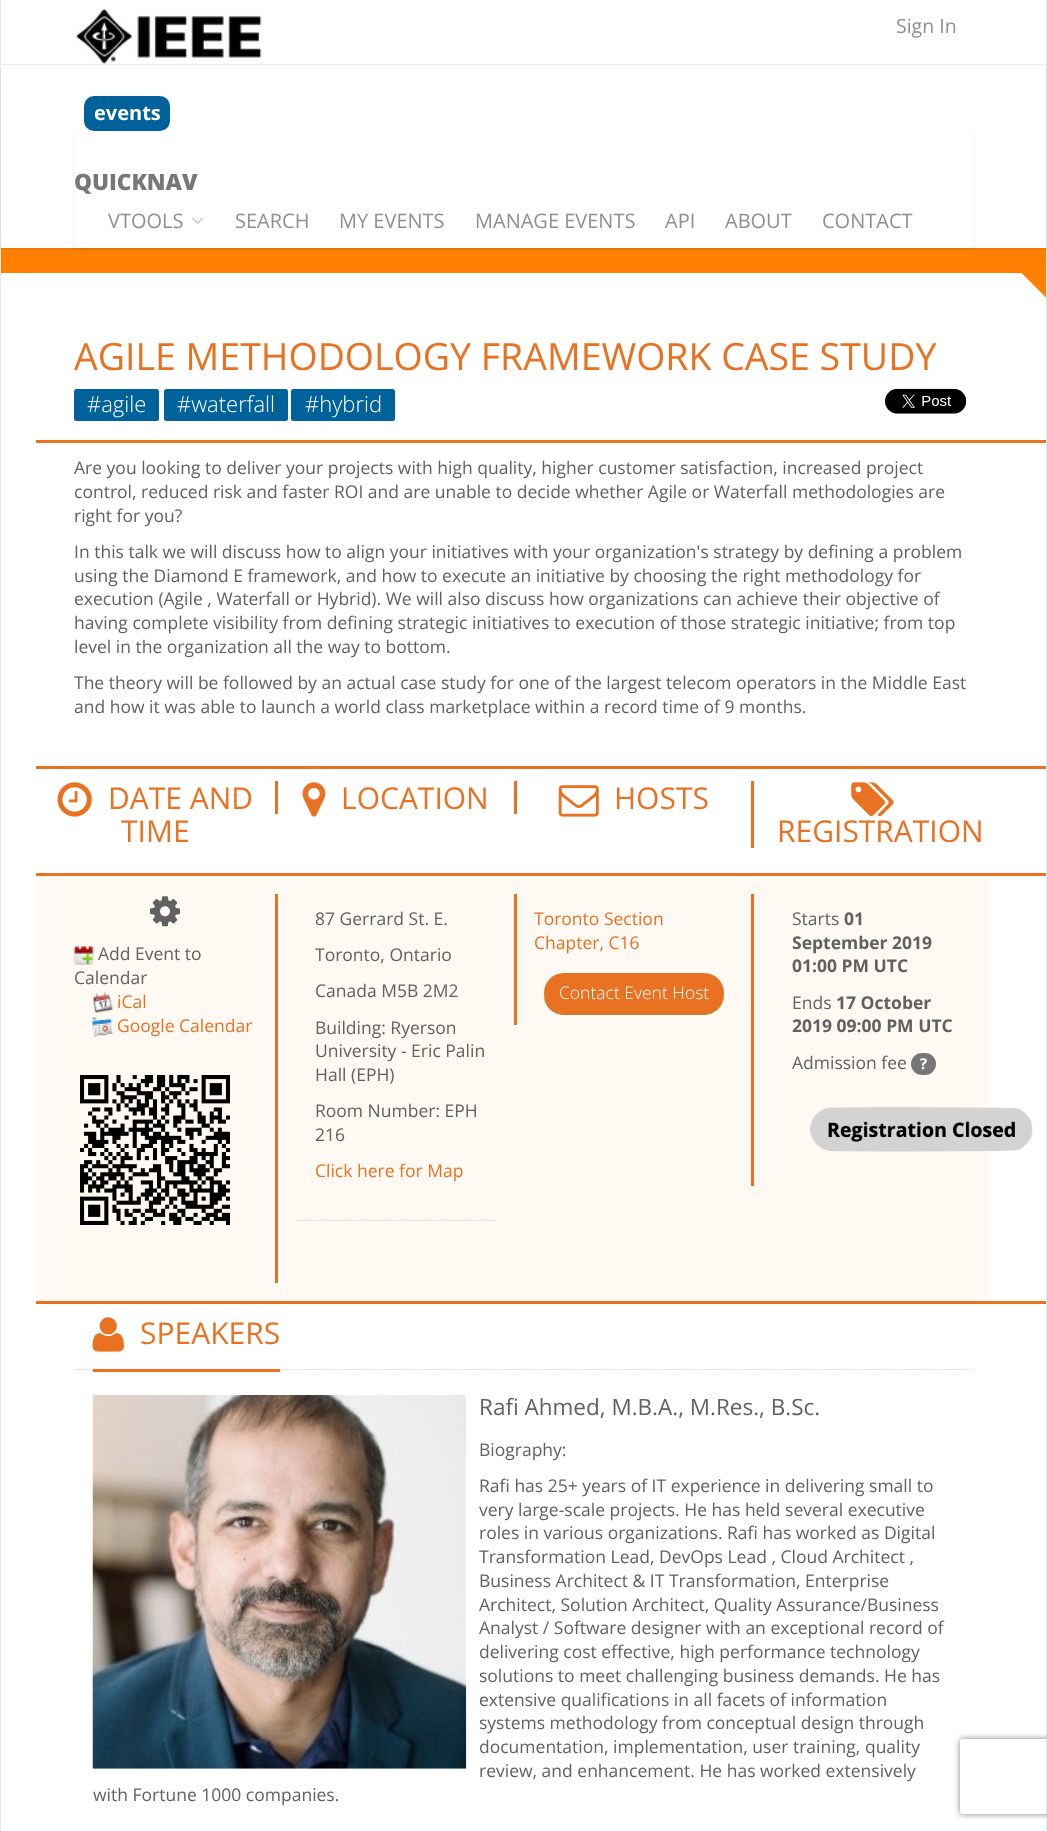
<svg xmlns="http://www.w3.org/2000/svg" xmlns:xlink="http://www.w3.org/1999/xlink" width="1047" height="1831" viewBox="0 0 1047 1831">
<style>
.cls-1{font:19.5px Open Sans;fill:#8f8f8f}
.cls-2{font:bold 20px Open Sans;fill:#ffffff}
.cls-3{font:800 22.5px Open Sans;fill:#777777}
.cls-4{font:20px Open Sans;fill:#8f8f8f}
.cls-5{font:37.5px Open Sans;fill:#e87222}
.cls-6{font:300 22px Open Sans;fill:#ffffff}
.cls-7{font:17.5px Open Sans;fill:#616161}
.cls-8{font:30px Open Sans;fill:#e87222}
.cls-9{font:17.5px Open Sans;fill:#e87222}
.cls-10{font:300 17.5px Open Sans;fill:#ffffff}
.cls-11{font:bold 17.5px Open Sans;fill:#616161}
.cls-12{font:bold 15px Open Sans;fill:#ffffff}
.cls-13{font:22.5px Open Sans;fill:#616161}
</style>
<defs>
<clipPath id="clip1"><path d="M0 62H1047V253H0ZM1 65H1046V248H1Z" clip-rule="evenodd"/></clipPath>
<clipPath id="clip2"><path d="M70 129H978V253H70ZM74 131H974V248H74Z" clip-rule="evenodd"/></clipPath>
<clipPath id="clip3"><path d="M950 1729H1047V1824H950ZM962.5 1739H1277.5C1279 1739 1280 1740 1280 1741.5V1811.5C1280 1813 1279 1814 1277.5 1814H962.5C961 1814 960 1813 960 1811.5V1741.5C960 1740 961 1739 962.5 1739Z" clip-rule="evenodd"/></clipPath>
</defs>
<rect width="100%" height="100%" fill="#ffffff"/>
<rect fill="#e4e9f0" x="1046" y="0" width="1" height="1831"/>
<rect fill="#e4e9f0" x="0" y="0" width="1" height="1831"/>
<rect fill="#eeeeee" x="1" y="64" width="1045" height="1"/>
<image xlink:href="image0.png" x="75" y="8" width="189" height="56"/>
<rect fill="#ff7f02" x="1" y="248" width="1045" height="25"/>
<g clip-path="url(#clip1)">
<rect fill="#000000" fill-opacity="0.1" filter="blur(1px)" x="1" y="66" width="1045" height="183"/>
</g>
<rect fill="#ffffff" fill-opacity="0.97" x="1" y="66" width="1045" height="182"/>
<rect fill="#00629b" x="84" y="96" width="86" height="35" rx="10"/>
<g clip-path="url(#clip2)">
<rect fill="#000000" fill-opacity="0.1" filter="blur(1px)" x="74" y="133" width="900" height="116"/>
</g>
<image xlink:href="image1.png" x="192" y="217" width="12" height="7"/>
<path fill="#ff7f02" d="M1021 272.5H1046V297.5Z"/>
<rect fill="#00629b" x="74" y="389" width="85" height="32" rx="2.5"/>
<rect fill="#00629b" x="164" y="389" width="124" height="32" rx="2.5"/>
<rect fill="#00629b" x="291" y="389" width="104" height="32" rx="2.5"/>
<image xlink:href="image2.png" x="885" y="388" width="82" height="26"/>
<rect fill="#e87222" x="36" y="440" width="1010" height="3"/>
<rect fill="#e87222" x="36" y="766" width="1010" height="3"/>
<image xlink:href="image3.png" x="57" y="782" width="35" height="35"/>
<rect fill="#e87222" x="275" y="781" width="3" height="33"/>
<image xlink:href="image4.png" x="302" y="782" width="24" height="35"/>
<rect fill="#e87222" x="514" y="781" width="3" height="33"/>
<image xlink:href="image5.png" x="558" y="785" width="41" height="32"/>
<rect fill="#e87222" x="751" y="781" width="3" height="67"/>
<image xlink:href="image6.png" x="851" y="782" width="43" height="35"/>
<rect fill="#e87222" x="36" y="873" width="1010" height="3"/>
<rect fill="#fff9f3" x="36" y="876" width="954" height="425"/>
<image xlink:href="image7.png" x="150" y="896" width="30" height="31"/>
<image xlink:href="image8.png" x="73" y="945" width="21" height="20"/>
<image xlink:href="image9.png" x="92" y="992" width="21" height="21"/>
<image xlink:href="image10.png" x="92" y="1017" width="21" height="20"/>
<image xlink:href="image11.png" x="80" y="1075" width="150" height="150"/>
<rect fill="#e87222" x="275" y="894" width="3" height="389"/>
<path fill="none" stroke="#d2d2d2" stroke-width="1.2" stroke-dasharray="1.25 1.25" d="M296 1220.5H495"/>
<rect fill="#e87222" x="514" y="894" width="3" height="131"/>
<path fill="#cb7e2b" d="M544 996C544 1006 553 1015 564 1015H704C715 1015 724 1006 724 995V992C724 1004 715 1012 704 1012H564C554 1012 546 1005 544 996Z"/>
<rect fill="#e87222" x="544" y="973" width="180" height="40" rx="20"/>
<rect fill="#e87222" x="751" y="894" width="3" height="292"/>
<rect fill="#777777" x="911" y="1053" width="25" height="22" rx="11"/>
<image xlink:href="image12.png" x="810" y="1107" width="223" height="45"/>
<rect fill="#e87222" x="36" y="1301" width="1010" height="3"/>
<path fill="none" stroke="#d2d2d2" stroke-width="1.2" stroke-dasharray="1.25 1.25" d="M74 1369.5H974"/>
<rect fill="#e87222" x="93" y="1369" width="187" height="3"/>
<image xlink:href="image13.png" x="92" y="1317" width="32" height="35"/>
<image xlink:href="image14.png" x="92" y="1395" width="375" height="374"/>
<g clip-path="url(#clip3)">
<rect fill="#808080" filter="blur(3px)" x="960" y="1739" width="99" height="75" rx="2.5"/>
</g>
<text class="cls-1" x="896" y="33">Sign In</text>
<text class="cls-2" x="94" y="120">events</text>
<text class="cls-3" x="74" y="190">QUICKNAV</text>
<text class="cls-4" x="108" y="228">VTOOLS</text>
<text class="cls-4" x="235" y="228">SEARCH</text>
<text class="cls-4" x="339" y="228">MY EVENTS</text>
<text class="cls-4" x="475" y="228">MANAGE EVENTS</text>
<text class="cls-4" x="665" y="228">API</text>
<text class="cls-4" x="725" y="228">ABOUT</text>
<text class="cls-4" x="822" y="228">CONTACT</text>
<text class="cls-5" x="74" y="370">AGILE METHODOLOGY FRAMEWORK CASE STUDY</text>
<text class="cls-6" x="87" y="412">#agile</text>
<text class="cls-6" x="177" y="412">#waterfall</text>
<text class="cls-6" x="305" y="412">#hybrid</text>
<text class="cls-7"><tspan x="74" y="474">Are you looking to deliver your projects with high quality, higher customer satisfaction, increased project</tspan><tspan x="74" y="498">control, reduced risk and faster ROI and are unable to decide whether Agile or Waterfall methodologies are</tspan><tspan x="74" y="522">right for you?</tspan></text>
<text class="cls-7"><tspan x="74" y="558">In this talk we will discuss how to align your initiatives with your organization's strategy by defining a problem</tspan><tspan x="74" y="582">using the Diamond E framework, and how to execute an initiative by choosing the right methodology for</tspan><tspan x="74" y="605">execution (Agile , Waterfall or Hybrid). We will also discuss how organizations can achieve their objective of</tspan><tspan x="74" y="629">having complete visibility from defining strategic initiatives to execution of those strategic initiative; from top</tspan><tspan x="74" y="653">level in the organization all the way to bottom.</tspan></text>
<text class="cls-7"><tspan x="74" y="689">The theory will be followed by an actual case study for one of the largest telecom operators in the Middle East</tspan><tspan x="74" y="713">and how it was able to launch a world class marketplace within a record time of 9 months.</tspan></text>
<text class="cls-8" x="108" y="809">DATE AND</text>
<text class="cls-8" x="121" y="842">TIME</text>
<text class="cls-8" x="341" y="809">LOCATION</text>
<text class="cls-8" x="614" y="809">HOSTS</text>
<text class="cls-8" x="777" y="842">REGISTRATION</text>
<text class="cls-7" x="98" y="960">Add Event to</text>
<text class="cls-7" x="74" y="984">Calendar</text>
<text class="cls-9"><tspan x="117" y="1008">iCal</tspan><tspan x="117" y="1032">Google Calendar</tspan></text>
<text class="cls-7" x="315" y="925">87 Gerrard St. E.</text>
<text class="cls-7" x="315" y="961">Toronto, Ontario</text>
<text class="cls-7" x="315" y="997">Canada M5B 2M2</text>
<text class="cls-7"><tspan x="315" y="1034">Building: Ryerson</tspan><tspan x="315" y="1057">University - Eric Palin</tspan><tspan x="315" y="1081">Hall (EPH)</tspan></text>
<text class="cls-7"><tspan x="315" y="1117">Room Number: EPH</tspan><tspan x="315" y="1141">216</tspan></text>
<text class="cls-9" x="315" y="1177">Click here for Map</text>
<text class="cls-9"><tspan x="534" y="925">Toronto Section</tspan><tspan x="534" y="949">Chapter, C16</tspan></text>
<text class="cls-10" x="559" y="999">Contact Event Host</text>
<text class="cls-7" x="792" y="925">Starts</text>
<text class="cls-11" x="844" y="925">01</text>
<text class="cls-11"><tspan x="792" y="949">September 2019</tspan><tspan x="792" y="972">01:00 PM UTC</tspan></text>
<text class="cls-7" x="792" y="1009">Ends</text>
<text class="cls-11" x="836" y="1009">17 October</text>
<text class="cls-11" x="792" y="1032">2019 09:00 PM UTC</text>
<text class="cls-7" x="792" y="1069">Admission fee</text>
<text class="cls-12" x="920" y="1069">?</text>
<text class="cls-8" x="140" y="1344">SPEAKERS</text>
<text class="cls-13" x="479" y="1415">Rafi Ahmed, M.B.A., M.Res., B.Sc.</text>
<text class="cls-7" x="479" y="1456">Biography:</text>
<text class="cls-7"><tspan x="479" y="1492">Rafi has 25+ years of IT experience in delivering small to</tspan><tspan x="479" y="1516">very large-scale projects. He has held several executive</tspan><tspan x="479" y="1539">roles in various organizations. Rafi has worked as Digital</tspan><tspan x="479" y="1563">Transformation Lead, DevOps Lead , Cloud Architect ,</tspan><tspan x="479" y="1587">Business Architect &amp; IT Transformation, Enterprise</tspan><tspan x="479" y="1611">Architect, Solution Architect, Quality Assurance/Business</tspan><tspan x="479" y="1634">Analyst / Software designer with an exceptional record of</tspan><tspan x="479" y="1658">delivering cost effective, high performance technology</tspan><tspan x="479" y="1682">solutions to meet challenging business demands. He has</tspan><tspan x="479" y="1706">extensive qualifications in all facets of information</tspan><tspan x="479" y="1729">systems methodology from conceptual design through</tspan><tspan x="479" y="1753">documentation, implementation, user training, quality</tspan><tspan x="479" y="1777">review, and enhancement. He has worked extensively</tspan></text>
<text class="cls-7" x="93" y="1801">with Fortune 1000 companies.</text>
</svg>
